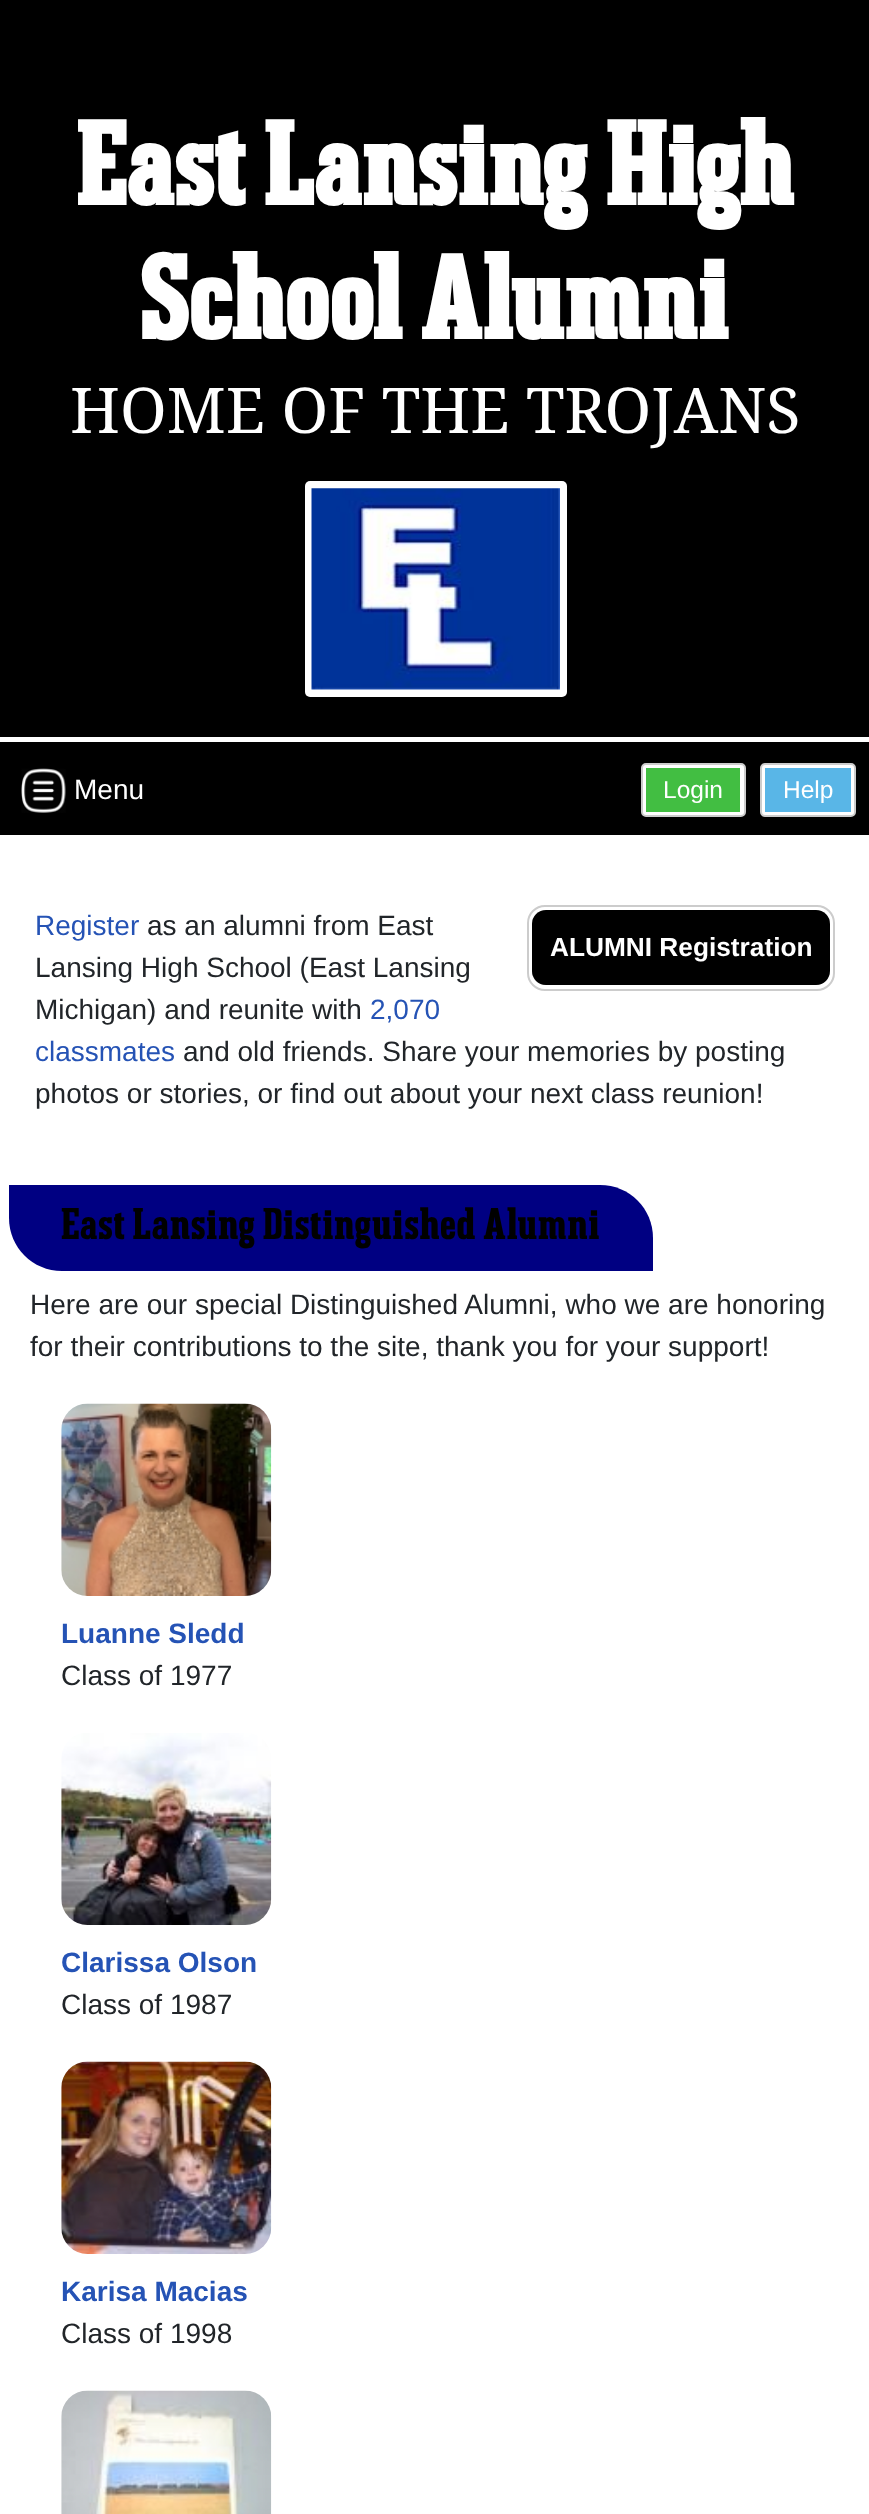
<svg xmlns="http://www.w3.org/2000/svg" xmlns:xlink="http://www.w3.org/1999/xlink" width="869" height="2514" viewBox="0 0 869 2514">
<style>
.cls-1{font:bold 112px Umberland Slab;letter-spacing:1.75px;fill:#ffffff}
.cls-2{font:63px Droid Serif;fill:#ffffff}
.cls-3{font:28px Liberation Sans;fill:#ffffff}
.cls-4{font:24.5px Liberation Sans;fill:#ffffff}
.cls-5{font:28px Liberation Sans;fill:#2553b5}
.cls-6{font:28px Liberation Sans;fill:#212529}
.cls-7{font:bold 26.25px Liberation Sans;fill:#ffffff}
.cls-8{font:42px Umberland Slab;letter-spacing:0.9px;fill:#000000}
.cls-9{font:bold 28px Liberation Sans;fill:#2553b5}
</style>
<rect width="100%" height="100%" fill="#ffffff"/>
<rect fill="#000000" x="0" y="0" width="869" height="737"/>
<rect fill="#ffffff" x="305" y="481" width="262" height="216" rx="5"/>
<image xlink:href="image0.png" x="311" y="488" width="249" height="202"/>
<rect fill="#000000" x="0" y="742" width="869" height="93"/>
<image xlink:href="image1.png" x="21" y="768" width="45" height="45"/>
<rect fill="#ffffff" stroke="#cccccc" stroke-width="2" x="642" y="764" width="103" height="52" rx="4"/>
<rect fill="#42be42" x="646" y="768" width="94" height="44"/>
<rect fill="#ffffff" stroke="#cccccc" stroke-width="2" x="761" y="764" width="94" height="52" rx="4"/>
<rect fill="#59b6e7" x="765" y="768" width="86" height="44"/>
<rect fill="none" stroke="#cccccc" stroke-width="2" x="528" y="906" width="306" height="84" rx="17"/>
<rect fill="#000000" x="532" y="910" width="298" height="75" rx="14"/>
<image xlink:href="image2.png" x="532" y="972" width="297" height="13"/>
<path fill="#000082" d="M9 1185H600C629.5 1185 653 1208.5 653 1238V1271H62C32.5 1271 9 1247.5 9 1218Z"/>
<image xlink:href="image3.png" x="61" y="1403" width="211" height="193"/>
<image xlink:href="image4.png" x="61" y="1733" width="211" height="192"/>
<image xlink:href="image5.png" x="61" y="2061" width="211" height="193"/>
<image xlink:href="image6.png" x="61" y="2390" width="211" height="124"/>
<text class="cls-1" x="76" y="205">East Lansing High</text>
<text class="cls-1" x="140" y="339">School Alumni</text>
<text class="cls-2" x="70" y="433">HOME OF THE TROJANS</text>
<text class="cls-3" x="74" y="799">Menu</text>
<text class="cls-4" x="663" y="798">Login</text>
<text class="cls-4" x="783" y="798">Help</text>
<text class="cls-5" x="35" y="935">Register</text>
<text class="cls-6" x="147" y="935">as an alumni from East</text>
<text class="cls-6"><tspan x="35" y="977">Lansing High School (East Lansing</tspan><tspan x="35" y="1019">Michigan) and reunite with</tspan></text>
<text class="cls-5" x="370" y="1019">2,070</text>
<text class="cls-5" x="35" y="1061">classmates</text>
<text class="cls-6" x="183" y="1061">and old friends. Share your memories by posting</text>
<text class="cls-6" x="35" y="1103">photos or stories, or find out about your next class reunion!</text>
<text class="cls-7" x="550" y="956">ALUMNI Registration</text>
<text class="cls-8" x="61" y="1239">East Lansing Distinguished Alumni</text>
<text class="cls-6"><tspan x="30" y="1314">Here are our special Distinguished Alumni, who we are honoring</tspan><tspan x="30" y="1356">for their contributions to the site, thank you for your support!</tspan></text>
<text class="cls-9" x="61" y="1643">Luanne Sledd</text>
<text class="cls-6" x="61" y="1685">Class of 1977</text>
<text class="cls-9" x="61" y="1972">Clarissa Olson</text>
<text class="cls-6" x="61" y="2014">Class of 1987</text>
<text class="cls-9" x="61" y="2301">Karisa Macias</text>
<text class="cls-6" x="61" y="2343">Class of 1998</text>
</svg>
